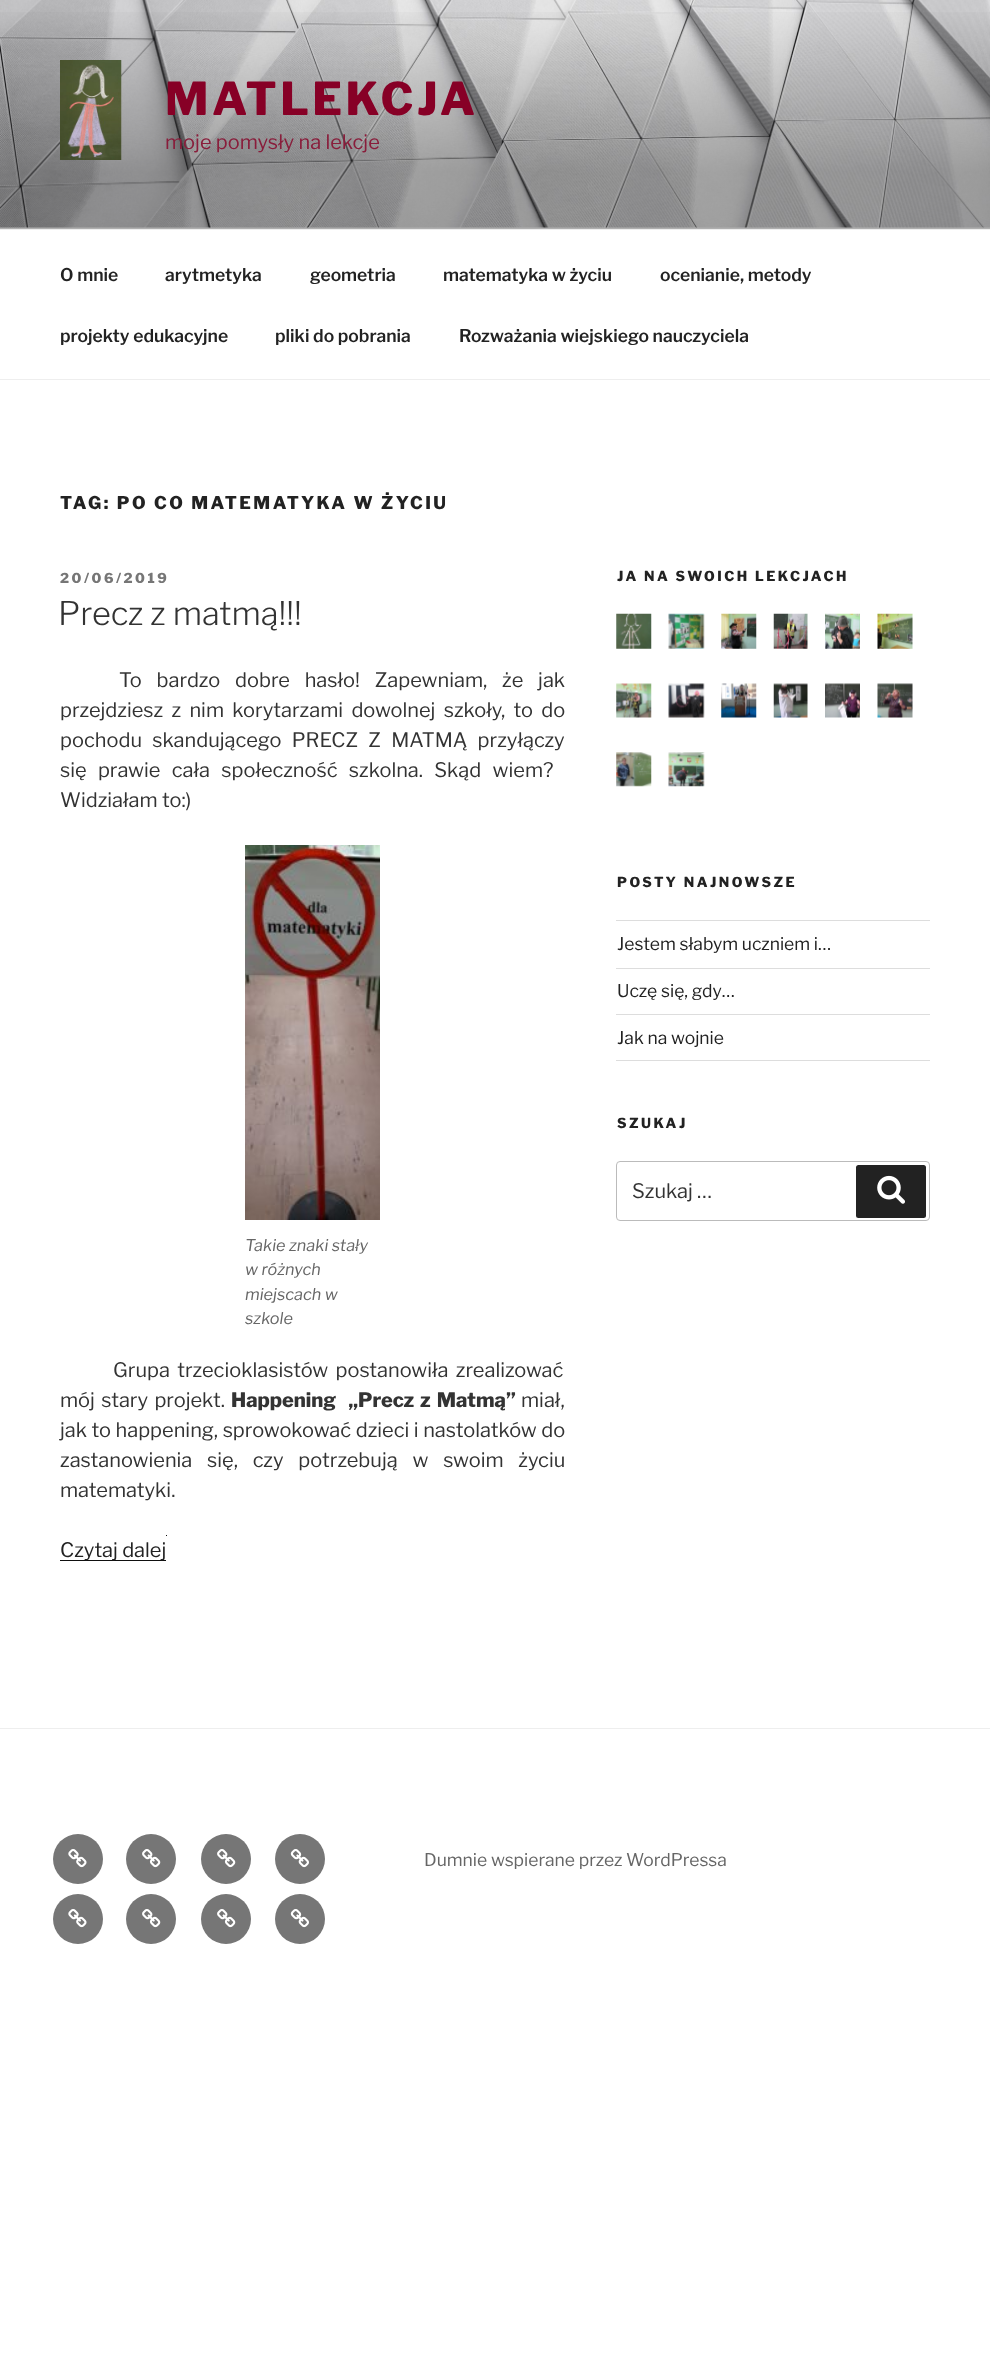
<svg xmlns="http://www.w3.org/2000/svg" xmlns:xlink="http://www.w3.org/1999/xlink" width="990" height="2358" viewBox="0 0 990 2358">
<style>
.cls-1{font:800 45px Libre Franklin;letter-spacing:3.5px;fill:#870026}
.cls-2{font:20px Libre Franklin;fill:#891d3b}
.cls-3{font:600 17.5px Libre Franklin;fill:#222222}
.cls-4{font:800 17.5px Libre Franklin;letter-spacing:2.45px;fill:#222222}
.cls-5{font:800 13.75px Libre Franklin;letter-spacing:2.5px;fill:#767676}
.cls-6{font:300 32.5px Libre Franklin;fill:#333333}
.cls-7{font:20px Libre Franklin;fill:#333333}
.cls-8{font:italic 16.25px Libre Franklin;fill:#666666}
.cls-9{font:800 20px Libre Franklin;fill:#333333}
.cls-10{font:20px Libre Franklin;fill:#222222}
.cls-11{font:800 13.75px Libre Franklin;letter-spacing:2.5px;fill:#222222}
.cls-12{font:17.5px Libre Franklin;fill:#222222}
.cls-13{font:17.5px Libre Franklin;fill:#666666}
</style>
<defs>
<linearGradient id="g1" gradientUnits="userSpaceOnUse" x1="495" y1="0" x2="495" y2="229"><stop offset="0" stop-color="#000000" stop-opacity="0"/><stop offset="0.75" stop-color="#000000" stop-opacity="0.3"/><stop offset="1" stop-color="#000000" stop-opacity="0.3"/></linearGradient>
</defs>
<rect width="100%" height="100%" fill="#ffffff"/>
<rect fill="#fafafa" x="0" y="227" width="990" height="2"/>
<image xlink:href="image0.png" x="0" y="0" width="990" height="228"/>
<rect fill="url(#g1)" x="0" y="12" width="990" height="217"/>
<image xlink:href="image1.png" x="60" y="60" width="62" height="100"/>
<rect fill="#eeeeee" x="0" y="229" width="990" height="1"/>
<rect fill="#eeeeee" x="0" y="379" width="990" height="1"/>
<image xlink:href="image2.png" x="245" y="845" width="135" height="375"/>
<rect fill="#0f0f0f" x="60" y="1560" width="106" height="1"/>
<rect fill="#0f0f0f" x="166" y="1535" width="1" height="1"/>
<image xlink:href="image3.png" x="616" y="613" width="36" height="36"/>
<image xlink:href="image4.png" x="668" y="613" width="37" height="36"/>
<image xlink:href="image5.png" x="721" y="613" width="36" height="36"/>
<image xlink:href="image6.png" x="773" y="613" width="35" height="36"/>
<image xlink:href="image7.png" x="825" y="613" width="35" height="36"/>
<image xlink:href="image8.png" x="877" y="613" width="36" height="36"/>
<image xlink:href="image9.png" x="616" y="683" width="36" height="35"/>
<image xlink:href="image10.png" x="668" y="683" width="37" height="35"/>
<image xlink:href="image11.png" x="721" y="683" width="36" height="35"/>
<image xlink:href="image12.png" x="773" y="683" width="35" height="35"/>
<image xlink:href="image13.png" x="825" y="683" width="35" height="35"/>
<image xlink:href="image14.png" x="877" y="683" width="36" height="35"/>
<image xlink:href="image15.png" x="616" y="752" width="36" height="35"/>
<image xlink:href="image16.png" x="668" y="752" width="37" height="35"/>
<rect fill="#dddddd" x="616" y="920" width="314" height="1"/>
<rect fill="#dddddd" x="616" y="968" width="314" height="1"/>
<rect fill="#dddddd" x="616" y="1014" width="314" height="1"/>
<rect fill="#dddddd" x="616" y="1060" width="314" height="1"/>
<rect fill="none" stroke="#bbbbbb" x="616.5" y="1161.5" width="313" height="59" rx="3.5"/>
<rect fill="#222222" x="856" y="1165" width="70" height="53" rx="2.5"/>
<image xlink:href="image17.png" x="877" y="1175" width="28" height="29"/>
<rect fill="#eeeeee" x="0" y="1728" width="990" height="1"/>
<circle fill="#767676" cx="78" cy="1859" r="25"/>
<image xlink:href="image18.png" x="68" y="1849" width="19" height="19"/>
<circle fill="#767676" cx="151" cy="1859" r="25"/>
<image xlink:href="image19.png" x="142" y="1849" width="19" height="19"/>
<circle fill="#767676" cx="226" cy="1859" r="25"/>
<image xlink:href="image19.png" x="217" y="1849" width="19" height="19"/>
<circle fill="#767676" cx="300" cy="1859" r="25"/>
<image xlink:href="image20.png" x="290" y="1849" width="19" height="19"/>
<circle fill="#767676" cx="78" cy="1919" r="25"/>
<image xlink:href="image18.png" x="68" y="1909" width="19" height="19"/>
<circle fill="#767676" cx="151" cy="1919" r="25"/>
<image xlink:href="image19.png" x="142" y="1909" width="19" height="19"/>
<circle fill="#767676" cx="226" cy="1919" r="25"/>
<image xlink:href="image19.png" x="217" y="1909" width="19" height="19"/>
<circle fill="#767676" cx="300" cy="1919" r="25"/>
<image xlink:href="image20.png" x="290" y="1909" width="19" height="19"/>
<text class="cls-1" x="165" y="115">MATLEKCJA</text>
<text class="cls-2" x="165" y="149">moje pomysły na lekcje</text>
<text class="cls-3" x="60" y="281">O mnie</text>
<text class="cls-3" x="165" y="281">arytmetyka</text>
<text class="cls-3" x="310" y="281">geometria</text>
<text class="cls-3" x="443" y="281">matematyka w życiu</text>
<text class="cls-3" x="660" y="281">ocenianie, metody</text>
<text class="cls-3" x="60" y="342">projekty edukacyjne</text>
<text class="cls-3" x="275" y="342">pliki do pobrania</text>
<text class="cls-3" x="459" y="342">Rozważania wiejskiego nauczyciela</text>
<text class="cls-4" x="60" y="509">TAG: PO CO MATEMATYKA W ŻYCIU</text>
<text class="cls-5" x="60" y="583">20/06/2019</text>
<text class="cls-6" x="58" y="625">Precz z matmą!!!</text>
<text class="cls-7" x="119" y="687" word-spacing="10.5">To bardzo dobre hasło! Zapewniam, że jak</text>
<text class="cls-7"><tspan x="60" y="717" word-spacing="4">przejdziesz z nim korytarzami dowolnej szkoły, to do</tspan><tspan x="60" y="747" word-spacing="6">pochodu skandującego PRECZ Z MATMĄ przyłączy</tspan><tspan x="60" y="777" word-spacing="7">się prawie cała społeczność szkolna. Skąd wiem?</tspan><tspan x="60" y="807">Widziałam to:)</tspan></text>
<text class="cls-8"><tspan x="245" y="1251">Takie znaki stały</tspan><tspan x="245" y="1275">w różnych</tspan><tspan x="245" y="1300">miejscach w</tspan><tspan x="245" y="1324">szkole</tspan></text>
<text class="cls-7" x="113" y="1377" word-spacing="3">Grupa trzecioklasistów postanowiła zrealizować</text>
<text class="cls-7" x="60" y="1407" word-spacing="2">mój stary projekt.</text>
<text class="cls-9" xml:space="preserve" x="231" y="1407" word-spacing="2">Happening  „Precz z Matmą”</text>
<text class="cls-7" x="521" y="1407">miał,</text>
<text class="cls-7"><tspan x="60" y="1437" word-spacing="0.25">jak to happening, sprowokować dzieci i nastolatków do</tspan><tspan x="60" y="1467" word-spacing="10.5">zastanowienia się, czy potrzebują w swoim życiu</tspan><tspan x="60" y="1497">matematyki.</tspan></text>
<text class="cls-10" x="60" y="1557">Czytaj dalej</text>
<text class="cls-11" x="617" y="581">JA NA SWOICH LEKCJACH</text>
<text class="cls-11" x="617" y="887">POSTY NAJNOWSZE</text>
<text class="cls-12" x="617" y="950">Jestem słabym uczniem i…</text>
<text class="cls-12" x="617" y="997">Uczę się, gdy…</text>
<text class="cls-12" x="617" y="1044">Jak na wojnie</text>
<text class="cls-11" x="617" y="1128">SZUKAJ</text>
<text class="cls-7" x="632" y="1198">Szukaj …</text>
<text class="cls-13" x="424" y="1866">Dumnie wspierane przez WordPressa</text>
</svg>
